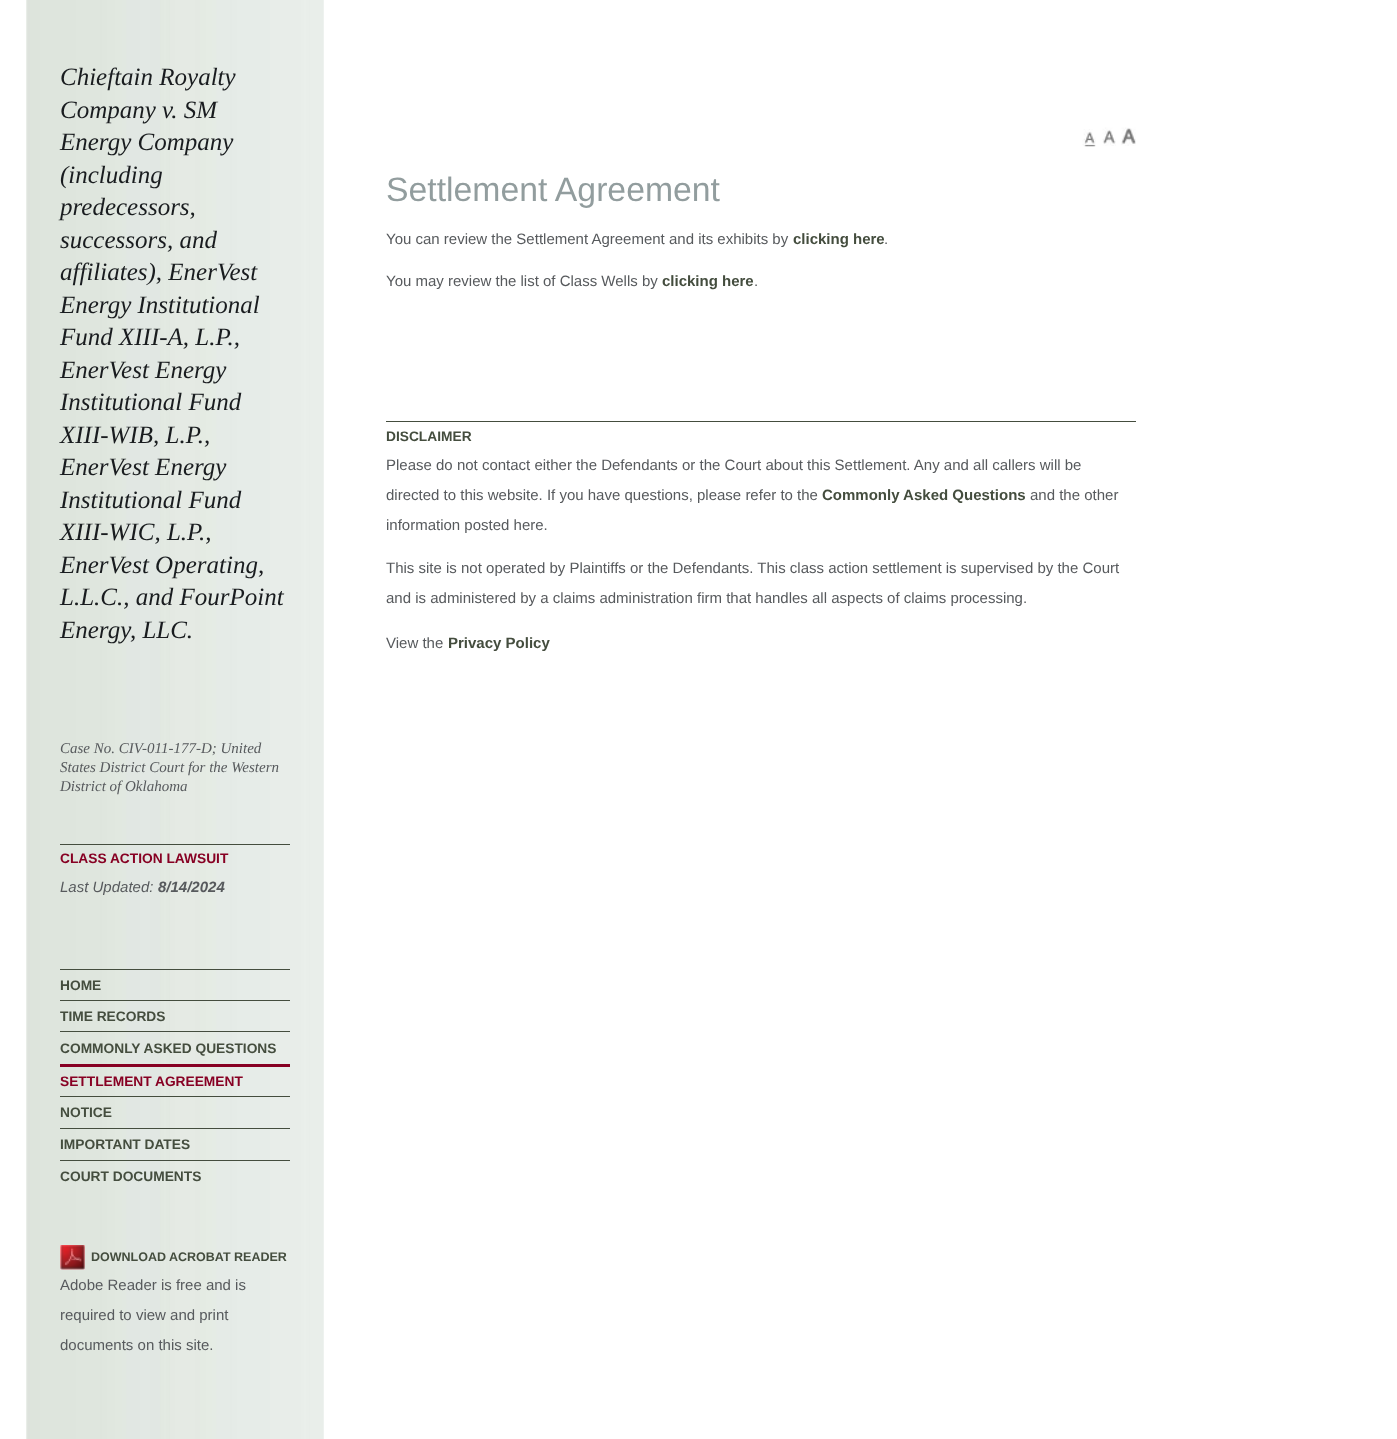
<svg xmlns="http://www.w3.org/2000/svg" xmlns:xlink="http://www.w3.org/1999/xlink" width="1397" height="1439" viewBox="0 0 1397 1439">
<style>
.cls-1{font:italic 25px Liberation Serif;fill:#191c1f}
.cls-2{font:italic 15px Liberation Serif;fill:#575a5d}
.cls-3{font:bold 13.75px Liberation Sans;fill:#870023}
.cls-4{font:italic 15px Liberation Sans;fill:#575a5d}
.cls-5{font:italic bold 15px Liberation Sans;fill:#575a5d}
.cls-6{font:bold 13.75px Liberation Sans;fill:#444d3e}
.cls-7{font:bold 12.5px Liberation Sans;fill:#444d3e}
.cls-8{font:15px Liberation Sans;fill:#575a5d}
.cls-9{font:33.75px Liberation Sans;fill:#929d9e}
.cls-10{font:bold 15px Liberation Sans;fill:#444d3e}
</style>
<rect width="100%" height="100%" fill="#ffffff"/>
<image xlink:href="image0.png" x="26" y="0" width="298" height="1439"/>
<rect fill="#444d3e" x="60" y="844" width="230" height="1"/>
<rect fill="#444d3e" x="60" y="969" width="230" height="1"/>
<rect fill="#444d3e" x="60" y="1000" width="230" height="1"/>
<rect fill="#444d3e" x="60" y="1031" width="230" height="1"/>
<rect fill="#870023" x="60" y="1064" width="230" height="3"/>
<rect fill="#444d3e" x="60" y="1096" width="230" height="1"/>
<rect fill="#444d3e" x="60" y="1128" width="230" height="1"/>
<rect fill="#444d3e" x="60" y="1160" width="230" height="1"/>
<image xlink:href="image1.png" x="60" y="1245" width="25" height="25"/>
<image xlink:href="image2.png" x="1082" y="129" width="14" height="18"/>
<image xlink:href="image3.png" x="1102" y="127" width="14" height="19"/>
<image xlink:href="image4.png" x="1121" y="127" width="15" height="19"/>
<rect fill="#444d3e" x="386" y="421" width="750" height="1"/>
<text class="cls-1"><tspan x="60" y="85">Chieftain Royalty</tspan><tspan x="60" y="118">Company v. SM</tspan><tspan x="60" y="150">Energy Company</tspan><tspan x="60" y="183">(including</tspan><tspan x="60" y="215">predecessors,</tspan><tspan x="60" y="248">successors, and</tspan><tspan x="60" y="280">affiliates), EnerVest</tspan><tspan x="60" y="313">Energy Institutional</tspan><tspan x="60" y="345">Fund XIII-A, L.P.,</tspan><tspan x="60" y="378">EnerVest Energy</tspan><tspan x="60" y="410">Institutional Fund</tspan><tspan x="60" y="443">XIII-WIB, L.P.,</tspan><tspan x="60" y="475">EnerVest Energy</tspan><tspan x="60" y="508">Institutional Fund</tspan><tspan x="60" y="540">XIII-WIC, L.P.,</tspan><tspan x="60" y="573">EnerVest Operating,</tspan><tspan x="60" y="605">L.L.C., and FourPoint</tspan><tspan x="60" y="638">Energy, LLC.</tspan></text>
<text class="cls-2"><tspan x="60" y="753">Case No. CIV-011-177-D; United</tspan><tspan x="60" y="772">States District Court for the Western</tspan><tspan x="60" y="791">District of Oklahoma</tspan></text>
<text class="cls-3" x="60" y="863">CLASS ACTION LAWSUIT</text>
<text class="cls-4" x="60" y="892">Last Updated:</text>
<text class="cls-5" x="158" y="892">8/14/2024</text>
<text class="cls-6" x="60" y="990">HOME</text>
<text class="cls-6" x="60" y="1021">TIME RECORDS</text>
<text class="cls-6" x="60" y="1053">COMMONLY ASKED QUESTIONS</text>
<text class="cls-3" x="60" y="1086">SETTLEMENT AGREEMENT</text>
<text class="cls-6" x="60" y="1117">NOTICE</text>
<text class="cls-6" x="60" y="1149">IMPORTANT DATES</text>
<text class="cls-6" x="60" y="1181">COURT DOCUMENTS</text>
<text class="cls-7" x="91" y="1261">DOWNLOAD ACROBAT READER</text>
<text class="cls-8" x="60" y="1290">Adobe Reader is free and is</text>
<text class="cls-8" x="60" y="1320">required to view and print</text>
<text class="cls-8" x="60" y="1350">documents on this site.</text>
<text class="cls-9" x="386" y="201">Settlement Agreement</text>
<text class="cls-8" x="386" y="244">You can review the Settlement Agreement and its exhibits by</text>
<text class="cls-10" x="793" y="244">clicking here</text>
<text class="cls-8" x="884" y="244">.</text>
<text class="cls-8" x="386" y="286">You may review the list of Class Wells by</text>
<text class="cls-10" x="662" y="286">clicking here</text>
<text class="cls-8" x="754" y="286">.</text>
<text class="cls-6" x="386" y="441">DISCLAIMER</text>
<text class="cls-8" x="386" y="470">Please do not contact either the Defendants or the Court about this Settlement. Any and all callers will be</text>
<text class="cls-8" x="386" y="500">directed to this website. If you have questions, please refer to the</text>
<text class="cls-10" x="822" y="500">Commonly Asked Questions</text>
<text class="cls-8" x="1030" y="500">and the other</text>
<text class="cls-8" x="386" y="530">information posted here.</text>
<text class="cls-8" x="386" y="573">This site is not operated by Plaintiffs or the Defendants. This class action settlement is supervised by the Court</text>
<text class="cls-8" x="386" y="603">and is administered by a claims administration firm that handles all aspects of claims processing.</text>
<text class="cls-8" x="386" y="648">View the</text>
<text class="cls-10" x="448" y="648">Privacy Policy</text>
</svg>
